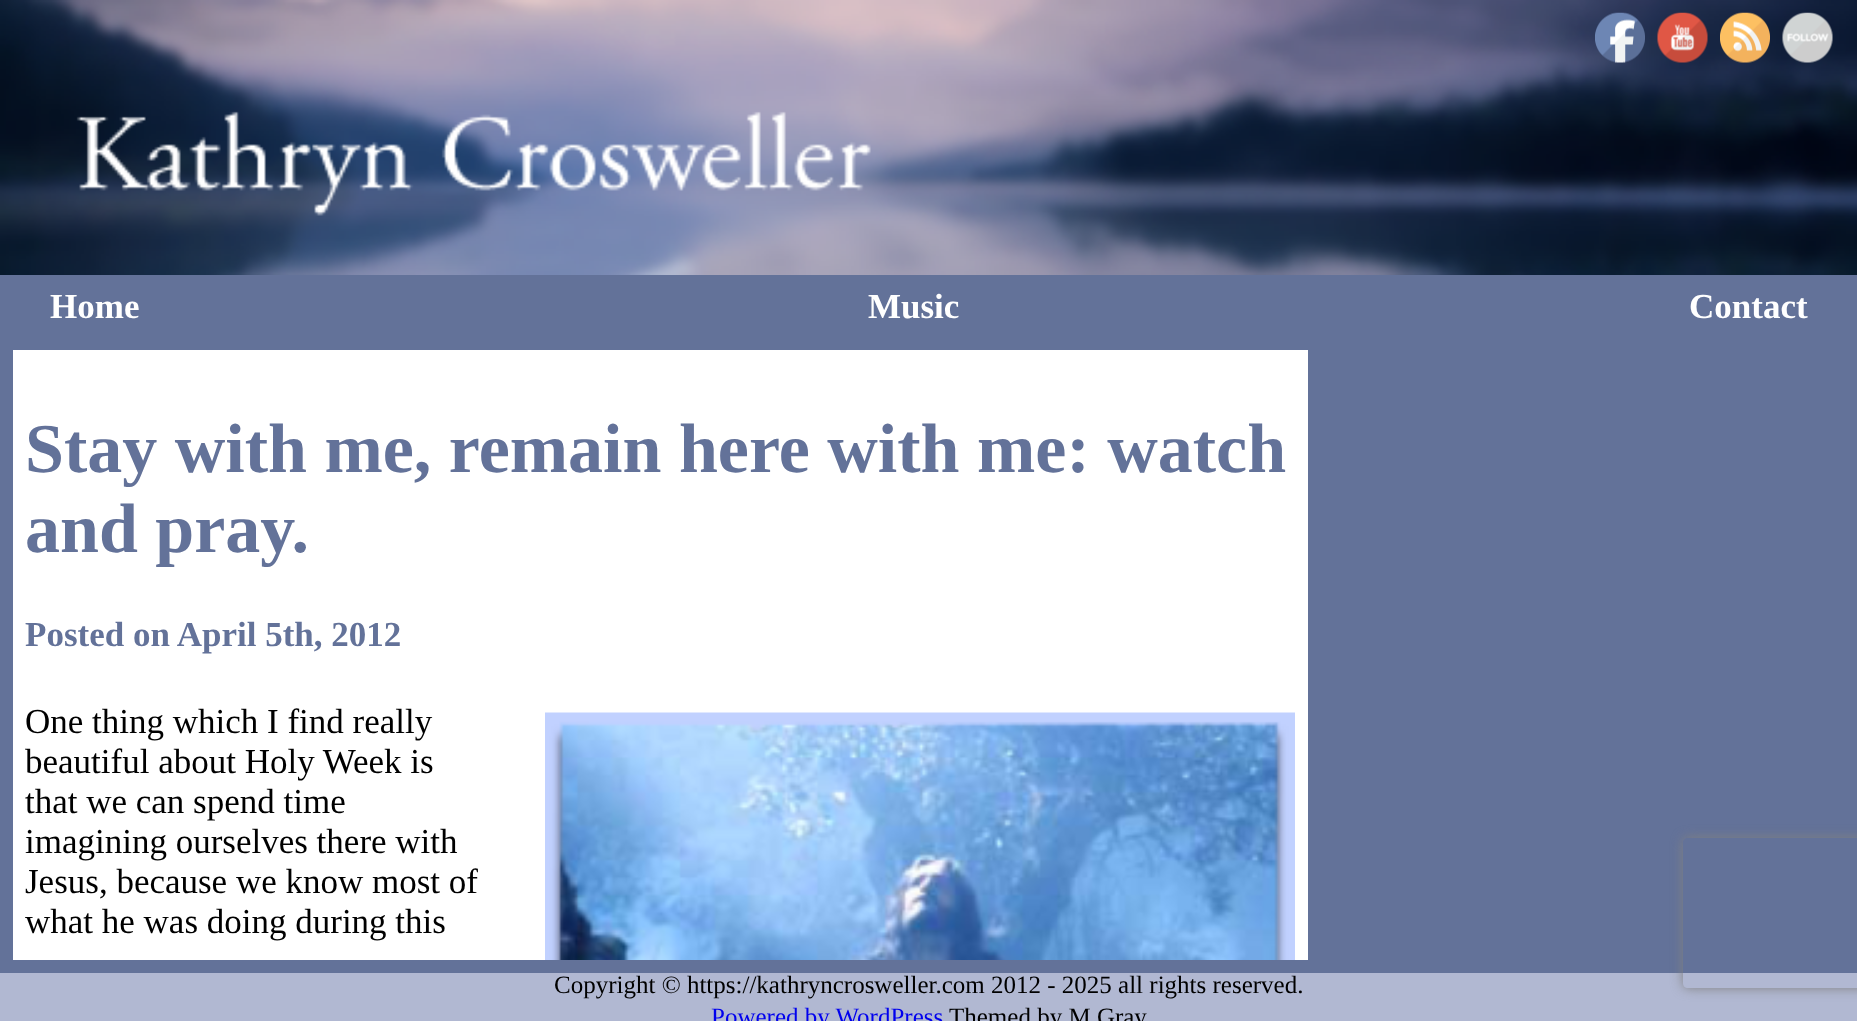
<svg xmlns="http://www.w3.org/2000/svg" xmlns:xlink="http://www.w3.org/1999/xlink" width="1857" height="1021" viewBox="0 0 1857 1021">
<style>
.cls-1{font:bold 35px Liberation Serif;fill:#ffffff}
.cls-2{font:bold 70px Liberation Serif;fill:#637299}
.cls-3{font:bold 35px Liberation Serif;fill:#637299}
.cls-4{font:35px Liberation Serif;fill:#000000}
.cls-5{font:25px Liberation Serif;fill:#000000}
.cls-6{font:25px Liberation Serif;fill:#0000ee}
</style>
<defs>
<clipPath id="clip1"><path d="M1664 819H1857V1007H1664ZM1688 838H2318C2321 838 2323 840 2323 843V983C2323 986 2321 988 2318 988H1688C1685 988 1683 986 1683 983V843C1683 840 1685 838 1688 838Z" clip-rule="evenodd"/></clipPath>
</defs>
<rect width="100%" height="100%" fill="#b1b8d2"/>
<rect fill="#ffffff" x="13" y="350" width="1295" height="610"/>
<image xlink:href="image0.png" x="0" y="0" width="1857" height="275"/>
<image xlink:href="image1.png" x="1595" y="12" width="50" height="51"/>
<image xlink:href="image2.png" x="1657" y="12" width="51" height="51"/>
<image xlink:href="image3.png" x="1720" y="12" width="50" height="51"/>
<image xlink:href="image4.png" x="1782" y="12" width="51" height="51"/>
<rect fill="#637299" x="0" y="275" width="1857" height="75"/>
<rect fill="#637299" x="1308" y="350" width="12" height="610"/>
<rect fill="#637299" x="13" y="960" width="1307" height="13"/>
<rect fill="#637299" x="0" y="350" width="13" height="623"/>
<image xlink:href="image5.png" x="545" y="712" width="750" height="248"/>
<rect fill="#637299" x="1320" y="350" width="537" height="623"/>
<g clip-path="url(#clip1)">
<rect fill="#808080" filter="blur(6px)" x="1683" y="838" width="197" height="150" rx="5"/>
</g>
<text class="cls-1" x="50" y="318">Home</text>
<text class="cls-1" x="868" y="318">Music</text>
<text class="cls-1" x="1689" y="318">Contact</text>
<text class="cls-2"><tspan x="25" y="472">Stay with me, remain here with me: watch</tspan><tspan x="25" y="552">and pray.</tspan></text>
<text class="cls-3" x="25" y="646">Posted on April 5th, 2012</text>
<text class="cls-4"><tspan x="25" y="733">One thing which I find really</tspan><tspan x="25" y="773">beautiful about Holy Week is</tspan><tspan x="25" y="813">that we can spend time</tspan><tspan x="25" y="853">imagining ourselves there with</tspan><tspan x="25" y="893">Jesus, because we know most of</tspan><tspan x="25" y="933">what he was doing during this</tspan></text>
<text class="cls-5" x="554" y="993">Copyright © https://kathryncrosweller.com 2012 - 2025 all rights reserved.</text>
<text class="cls-6" x="711" y="1025">Powered by WordPress</text>
<text class="cls-5" x="949" y="1025">Themed by M Gray</text>
</svg>
